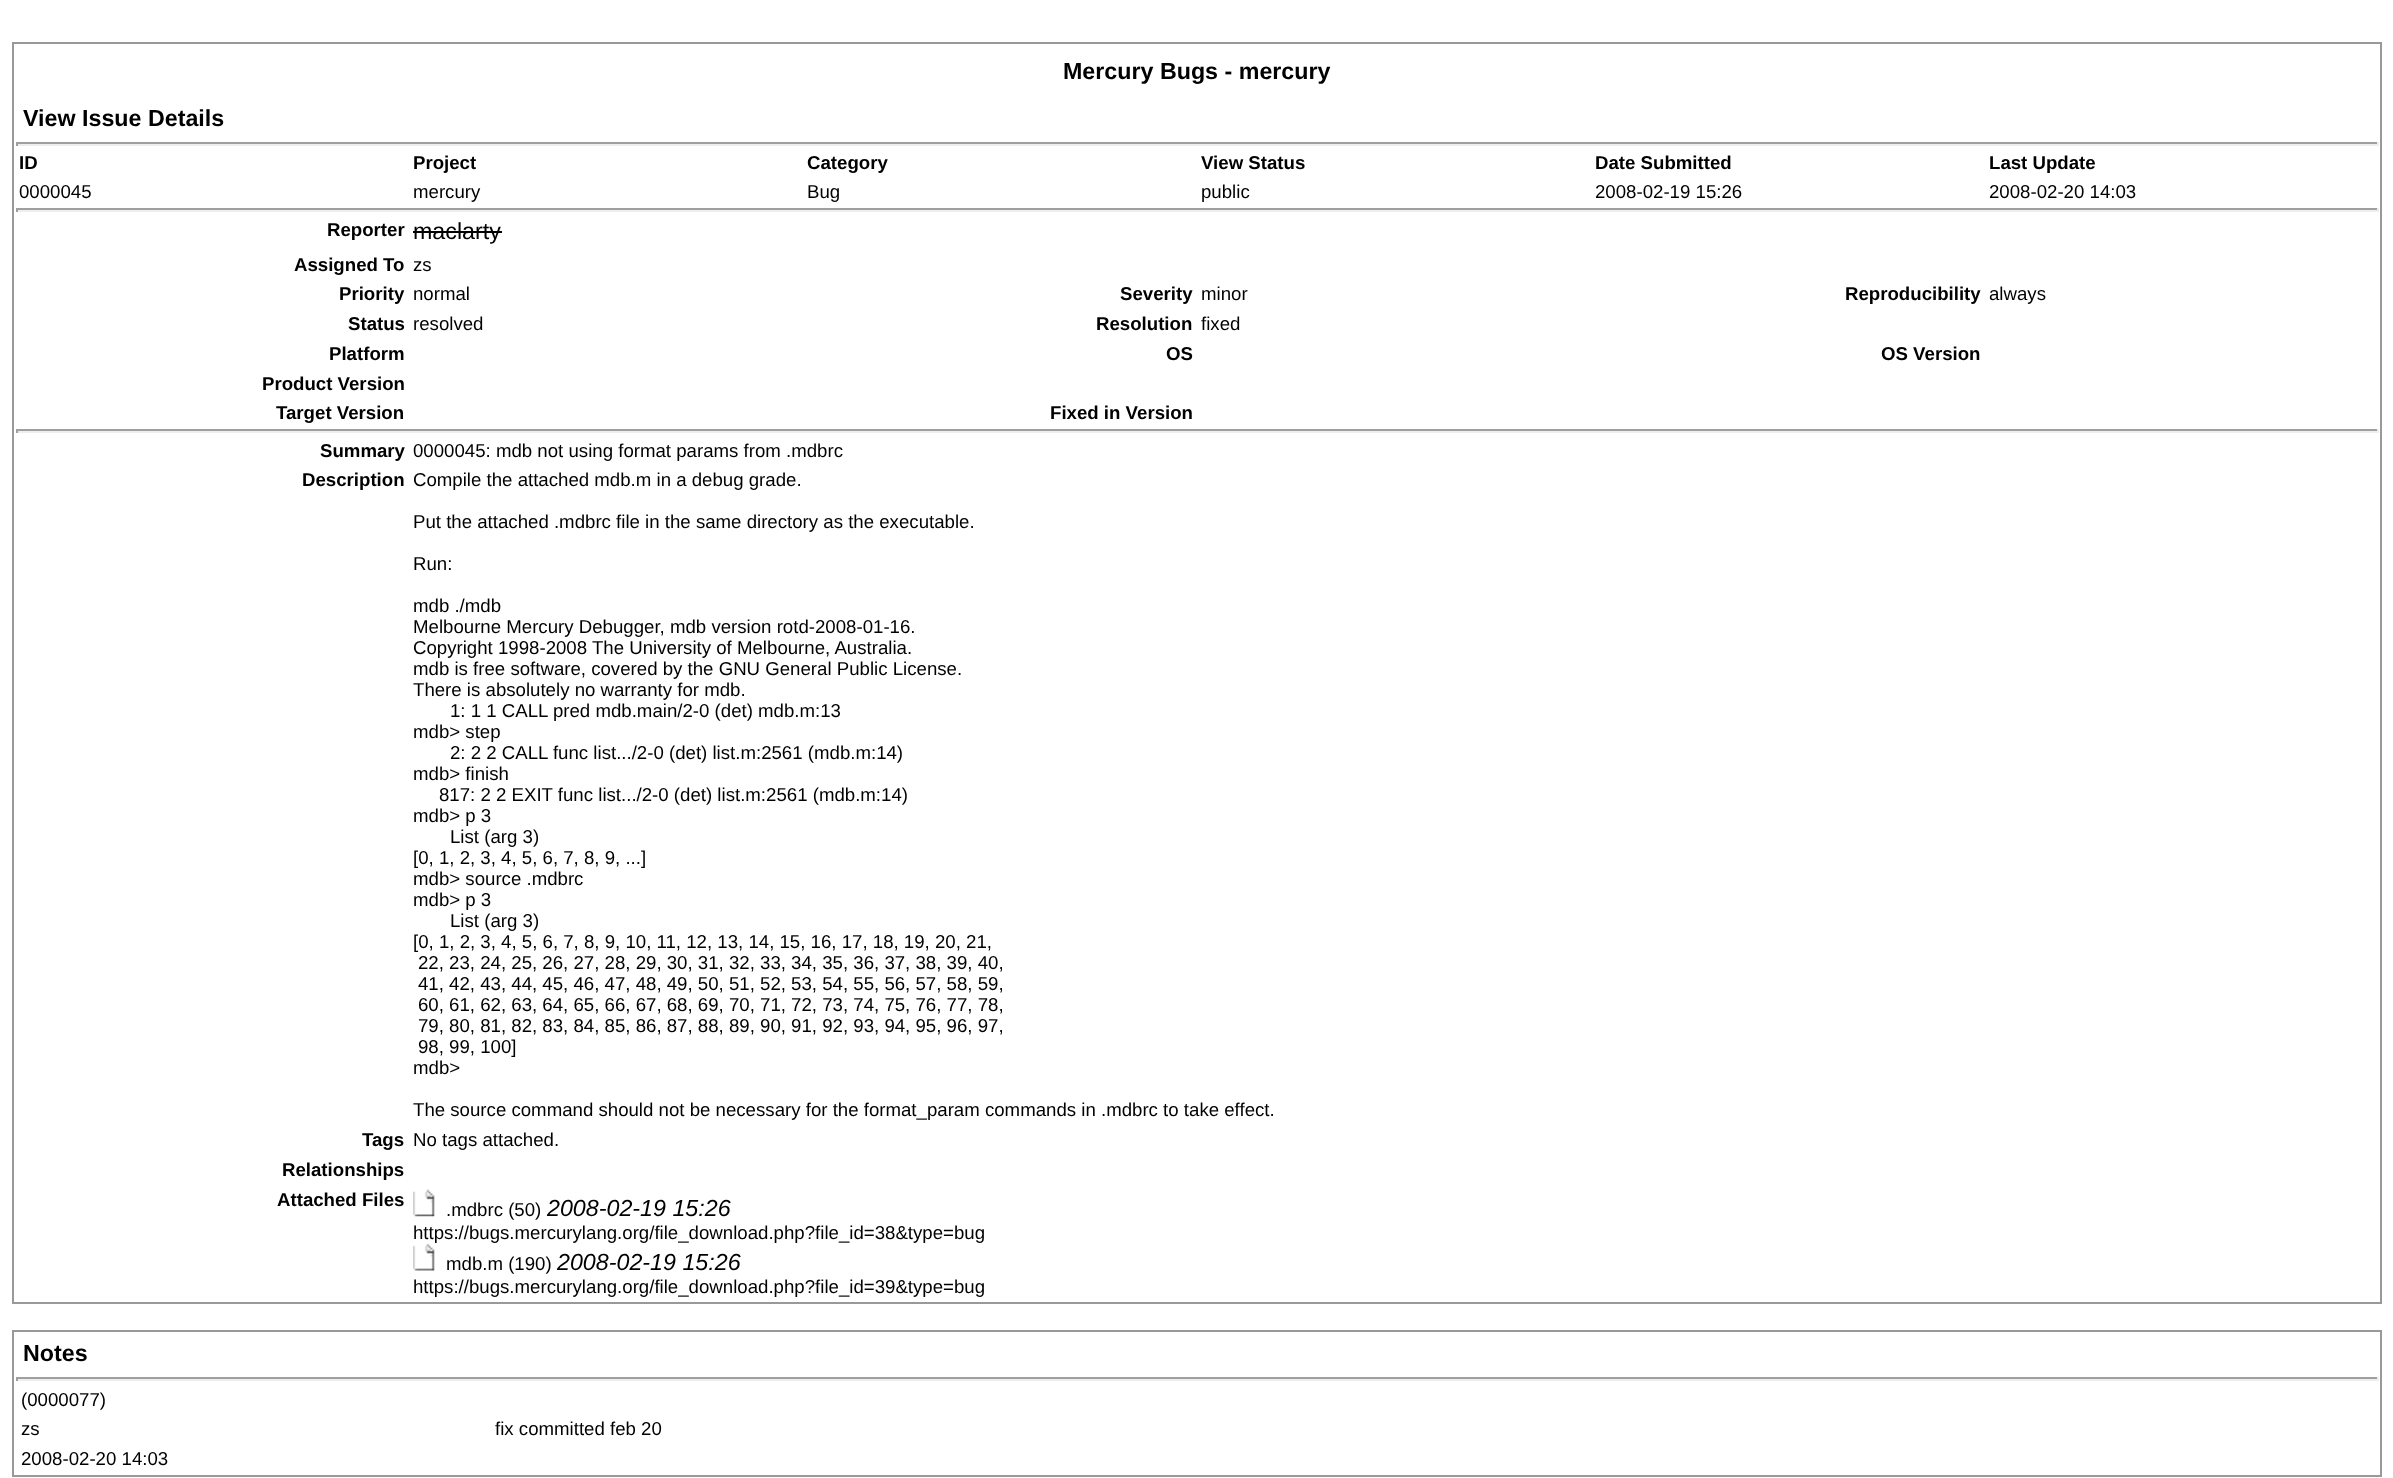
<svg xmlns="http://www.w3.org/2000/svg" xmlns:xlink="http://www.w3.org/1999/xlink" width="2393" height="1478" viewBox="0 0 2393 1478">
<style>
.cls-1{font:bold 23.25px Liberation Sans;fill:#000000}
.cls-2{font:bold 18.65px Liberation Sans;fill:#000000}
.cls-3{font:18.65px Liberation Sans;fill:#000000}
.cls-4{font:23.25px Liberation Sans;fill:#000000}
.cls-5{font:italic 23.25px Liberation Sans;fill:#000000}
</style>
<rect width="100%" height="100%" fill="#ffffff"/>
<rect fill="none" stroke="#999999" stroke-width="2" x="13" y="43" width="2368" height="1260"/>
<rect fill="#9f9f9f" x="16" y="142" width="2362" height="2"/>
<rect fill="#eeeeee" x="2377" y="142" width="2" height="4"/>
<rect fill="#eeeeee" x="16" y="144" width="2362" height="2"/>
<rect fill="#9f9f9f" x="16" y="142" width="2" height="4"/>
<rect fill="#9f9f9f" x="16" y="208" width="2362" height="2"/>
<rect fill="#eeeeee" x="2377" y="208" width="2" height="4"/>
<rect fill="#eeeeee" x="16" y="210" width="2362" height="2"/>
<rect fill="#9f9f9f" x="16" y="208" width="2" height="4"/>
<rect fill="#000000" x="413" y="231" width="89" height="2"/>
<rect fill="#9f9f9f" x="16" y="429" width="2362" height="2"/>
<rect fill="#eeeeee" x="2377" y="429" width="2" height="4"/>
<rect fill="#eeeeee" x="16" y="431" width="2362" height="2"/>
<rect fill="#9f9f9f" x="16" y="429" width="2" height="4"/>
<image xlink:href="image0.png" x="413" y="1189" width="22" height="28"/>
<image xlink:href="image1.png" x="413" y="1243" width="22" height="28"/>
<rect fill="none" stroke="#999999" stroke-width="2" x="13" y="1331" width="2368" height="145"/>
<rect fill="#9f9f9f" x="16" y="1377" width="2362" height="2"/>
<rect fill="#eeeeee" x="2377" y="1377" width="2" height="4"/>
<rect fill="#eeeeee" x="16" y="1379" width="2362" height="2"/>
<rect fill="#9f9f9f" x="16" y="1377" width="2" height="4"/>
<text class="cls-1" x="1063" y="79">Mercury Bugs - mercury</text>
<text class="cls-1" x="23" y="126">View Issue Details</text>
<text class="cls-2" x="19" y="169">ID</text>
<text class="cls-2" x="413" y="169">Project</text>
<text class="cls-2" x="807" y="169">Category</text>
<text class="cls-2" x="1201" y="169">View Status</text>
<text class="cls-2" x="1595" y="169">Date Submitted</text>
<text class="cls-2" x="1989" y="169">Last Update</text>
<text class="cls-3" x="19" y="198">0000045</text>
<text class="cls-3" x="413" y="198">mercury</text>
<text class="cls-3" x="807" y="198">Bug</text>
<text class="cls-3" x="1201" y="198">public</text>
<text class="cls-3" x="1595" y="198">2008-02-19 15:26</text>
<text class="cls-3" x="1989" y="198">2008-02-20 14:03</text>
<text class="cls-2" x="327" y="236">Reporter</text>
<text class="cls-4" x="413" y="239">maclarty</text>
<text class="cls-2" x="294" y="271">Assigned To</text>
<text class="cls-3" x="413" y="271">zs</text>
<text class="cls-2" x="339" y="300">Priority</text>
<text class="cls-3" x="413" y="300">normal</text>
<text class="cls-2" x="1120" y="300">Severity</text>
<text class="cls-3" x="1201" y="300">minor</text>
<text class="cls-2" x="1845" y="300">Reproducibility</text>
<text class="cls-3" x="1989" y="300">always</text>
<text class="cls-2" x="348" y="330">Status</text>
<text class="cls-3" x="413" y="330">resolved</text>
<text class="cls-2" x="1096" y="330">Resolution</text>
<text class="cls-3" x="1201" y="330">fixed</text>
<text class="cls-2" x="329" y="360">Platform</text>
<text class="cls-2" x="1166" y="360">OS</text>
<text class="cls-2" x="1881" y="360">OS Version</text>
<text class="cls-2" x="262" y="390">Product Version</text>
<text class="cls-2" x="276" y="419">Target Version</text>
<text class="cls-2" x="1050" y="419">Fixed in Version</text>
<text class="cls-2" x="320" y="457">Summary</text>
<text class="cls-3" x="413" y="457">0000045: mdb not using format params from .mdbrc</text>
<text class="cls-2" x="302" y="486">Description</text>
<text class="cls-3" x="413" y="486">Compile the attached mdb.m in a debug grade.</text>
<text class="cls-3" x="413" y="528">Put the attached .mdbrc file in the same directory as the executable.</text>
<text class="cls-3" x="413" y="570">Run:</text>
<text class="cls-3"><tspan x="413" y="612">mdb ./mdb</tspan><tspan x="413" y="633">Melbourne Mercury Debugger, mdb version rotd-2008-01-16.</tspan><tspan x="413" y="654">Copyright 1998-2008 The University of Melbourne, Australia.</tspan><tspan x="413" y="675">mdb is free software, covered by the GNU General Public License.</tspan><tspan x="413" y="696">There is absolutely no warranty for mdb.</tspan></text>
<text class="cls-3" x="450" y="717">1: 1 1 CALL pred mdb.main/2-0 (det) mdb.m:13</text>
<text class="cls-3" x="413" y="738">mdb&gt; step</text>
<text class="cls-3" x="450" y="759">2: 2 2 CALL func list.../2-0 (det) list.m:2561 (mdb.m:14)</text>
<text class="cls-3" x="413" y="780">mdb&gt; finish</text>
<text class="cls-3" x="439" y="801">817: 2 2 EXIT func list.../2-0 (det) list.m:2561 (mdb.m:14)</text>
<text class="cls-3" x="413" y="822">mdb&gt; p 3</text>
<text class="cls-3" x="450" y="843">List (arg 3)</text>
<text class="cls-3"><tspan x="413" y="864">[0, 1, 2, 3, 4, 5, 6, 7, 8, 9, ...]</tspan><tspan x="413" y="885">mdb&gt; source .mdbrc</tspan><tspan x="413" y="906">mdb&gt; p 3</tspan></text>
<text class="cls-3" x="450" y="927">List (arg 3)</text>
<text class="cls-3" x="413" y="948">[0, 1, 2, 3, 4, 5, 6, 7, 8, 9, 10, 11, 12, 13, 14, 15, 16, 17, 18, 19, 20, 21,</text>
<text class="cls-3"><tspan x="418" y="969">22, 23, 24, 25, 26, 27, 28, 29, 30, 31, 32, 33, 34, 35, 36, 37, 38, 39, 40,</tspan><tspan x="418" y="990">41, 42, 43, 44, 45, 46, 47, 48, 49, 50, 51, 52, 53, 54, 55, 56, 57, 58, 59,</tspan><tspan x="418" y="1011">60, 61, 62, 63, 64, 65, 66, 67, 68, 69, 70, 71, 72, 73, 74, 75, 76, 77, 78,</tspan><tspan x="418" y="1032">79, 80, 81, 82, 83, 84, 85, 86, 87, 88, 89, 90, 91, 92, 93, 94, 95, 96, 97,</tspan><tspan x="418" y="1053">98, 99, 100]</tspan></text>
<text class="cls-3" x="413" y="1074">mdb&gt;</text>
<text class="cls-3" x="413" y="1116">The source command should not be necessary for the format_param commands in .mdbrc to take effect.</text>
<text class="cls-2" x="362" y="1146">Tags</text>
<text class="cls-3" x="413" y="1146">No tags attached.</text>
<text class="cls-2" x="282" y="1176">Relationships</text>
<text class="cls-2" x="277" y="1206">Attached Files</text>
<text class="cls-3" x="446" y="1216">.mdbrc (50)</text>
<text class="cls-5" x="547" y="1216">2008-02-19 15:26</text>
<text class="cls-3" x="413" y="1239">https://bugs.mercurylang.org/file_download.php?file_id=38&amp;type=bug</text>
<text class="cls-3" x="446" y="1270">mdb.m (190)</text>
<text class="cls-5" x="557" y="1270">2008-02-19 15:26</text>
<text class="cls-3" x="413" y="1293">https://bugs.mercurylang.org/file_download.php?file_id=39&amp;type=bug</text>
<text class="cls-1" x="23" y="1361">Notes</text>
<text class="cls-3"><tspan x="21" y="1406">(0000077)</tspan><tspan x="21" y="1435">zs</tspan><tspan x="21" y="1465">2008-02-20 14:03</tspan></text>
<text class="cls-3" x="495" y="1435">fix committed feb 20</text>
</svg>
